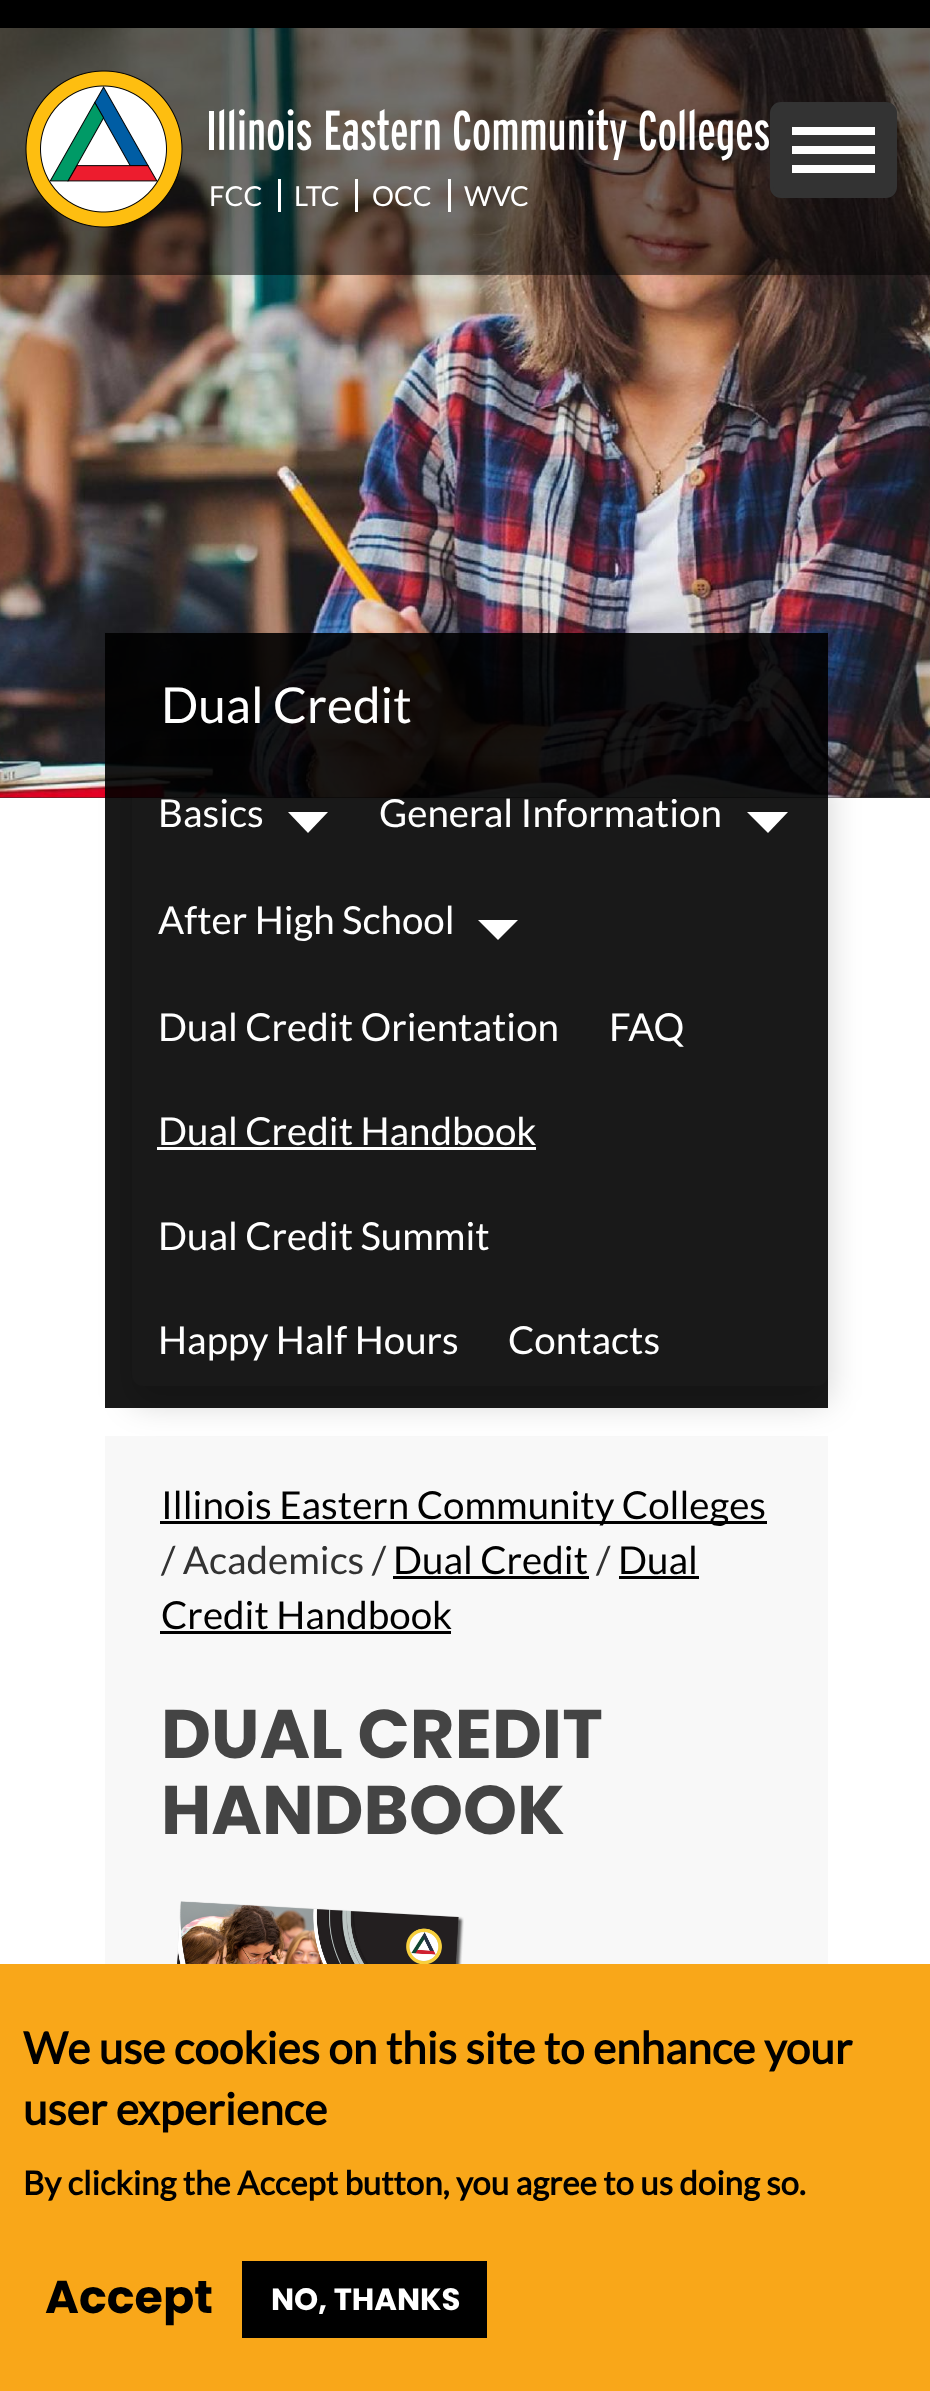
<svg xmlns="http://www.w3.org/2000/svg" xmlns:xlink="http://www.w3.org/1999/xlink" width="930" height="2391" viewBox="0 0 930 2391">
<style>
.cls-1{font:27.5px Lato;fill:#ffffff}
.cls-2{font:49.5px Lato;fill:#ffffff}
.cls-3{font:38.5px Lato;fill:#ffffff}
.cls-4{font:38.5px Lato;fill:#000000}
.cls-5{font:38.5px Lato;fill:#333333}
.cls-6{font:bold 68.75px Poppins;fill:#444444}
.cls-7{font:bold 44px Lato;fill:#000000}
.cls-8{font:bold 33px Lato;fill:#000000}
.cls-9{font:bold 46px Poppins;fill:#000000}
.cls-10{font:bold 30.75px Poppins;fill:#ffffff}
</style>
<defs>
<clipPath id="clip1"><path d="M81 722H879V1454H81ZM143 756H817C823 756 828 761 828 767V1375C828 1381 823 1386 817 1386H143C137 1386 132 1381 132 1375V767C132 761 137 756 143 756Z" clip-rule="evenodd"/></clipPath>
</defs>
<rect width="100%" height="100%" fill="#ffffff"/>
<rect fill="#333333" x="0" y="797" width="930" height="1"/>
<image xlink:href="image0.png" x="0" y="28" width="930" height="770"/>
<rect fill="#000000" x="0" y="0" width="930" height="28"/>
<rect fill="#000000" fill-opacity="0.5" x="0" y="28" width="930" height="247"/>
<rect fill="#333333" stroke="#333333" stroke-width="3" x="771.5" y="103.5" width="124" height="93" rx="9.5"/>
<rect fill="#ffffff" x="792" y="127" width="83" height="8"/>
<rect fill="#ffffff" x="792" y="146" width="83" height="8"/>
<rect fill="#ffffff" x="792" y="165" width="83" height="8"/>
<image xlink:href="image1.png" x="25" y="70" width="744" height="158"/>
<rect fill="#ffffff" x="278" y="179" width="3" height="33"/>
<rect fill="#ffffff" x="355" y="179" width="3" height="33"/>
<rect fill="#ffffff" x="448" y="179" width="3" height="33"/>
<rect fill="#000000" fill-opacity="0.9" x="105" y="633" width="723" height="775"/>
<rect fill="#f8f8f8" x="105" y="1436" width="723" height="528"/>
<g clip-path="url(#clip1)">
<rect fill="#000000" fill-opacity="0.18" filter="blur(16.5px)" x="132" y="773" width="696" height="630" rx="11"/>
</g>
<path fill="#ffffff" d="M328 812L308 833L288 812Z"/>
<path fill="#ffffff" d="M788 812L768 833L747 812Z"/>
<path fill="#ffffff" d="M518 920L498 940L478 920Z"/>
<rect fill="#ffffff" x="157" y="1147" width="379" height="3"/>
<rect fill="#000000" x="160" y="1521" width="607" height="3"/>
<rect fill="#000000" x="393" y="1576" width="196" height="3"/>
<rect fill="#000000" x="619" y="1576" width="80" height="3"/>
<rect fill="#000000" x="160" y="1631" width="291" height="3"/>
<image xlink:href="image2.png" x="177" y="1901" width="287" height="63"/>
<rect fill="#f9a719" x="0" y="1964" width="930" height="427"/>
<rect fill="#000000" x="242" y="2261" width="245" height="77"/>
<text class="cls-1" x="209" y="206">FCC</text>
<text class="cls-1" x="294" y="206">LTC</text>
<text class="cls-1" x="372" y="206">OCC</text>
<text class="cls-1" x="464" y="206">WVC</text>
<text class="cls-2" x="161" y="723">Dual Credit</text>
<text class="cls-3" x="158" y="827">Basics</text>
<text class="cls-3" x="379" y="827">General Information</text>
<text class="cls-3" x="158" y="934">After High School</text>
<text class="cls-3" x="158" y="1041">Dual Credit Orientation</text>
<text class="cls-3" x="609" y="1041">FAQ</text>
<text class="cls-3" x="158" y="1145">Dual Credit Handbook</text>
<text class="cls-3" x="158" y="1250">Dual Credit Summit</text>
<text class="cls-3" x="158" y="1354">Happy Half Hours</text>
<text class="cls-3" x="508" y="1354">Contacts</text>
<text class="cls-4" x="161" y="1519">Illinois Eastern Community Colleges</text>
<text class="cls-5" x="161" y="1574">/ Academics /</text>
<text class="cls-4" x="393" y="1574">Dual Credit</text>
<text class="cls-5" x="596" y="1574">/</text>
<text class="cls-4" x="618" y="1574">Dual</text>
<text class="cls-4" x="161" y="1629">Credit Handbook</text>
<text class="cls-6"><tspan x="161" y="1758">DUAL CREDIT</tspan><tspan x="161" y="1834">HANDBOOK</tspan></text>
<text class="cls-7"><tspan x="23" y="2064">We use cookies on this site to enhance your</tspan><tspan x="23" y="2125">user experience</tspan></text>
<text class="cls-8" x="23" y="2195">By clicking the Accept button, you agree to us doing so.</text>
<text class="cls-9" x="45" y="2313">Accept</text>
<text class="cls-10" x="271" y="2310">NO, THANKS</text>
</svg>
